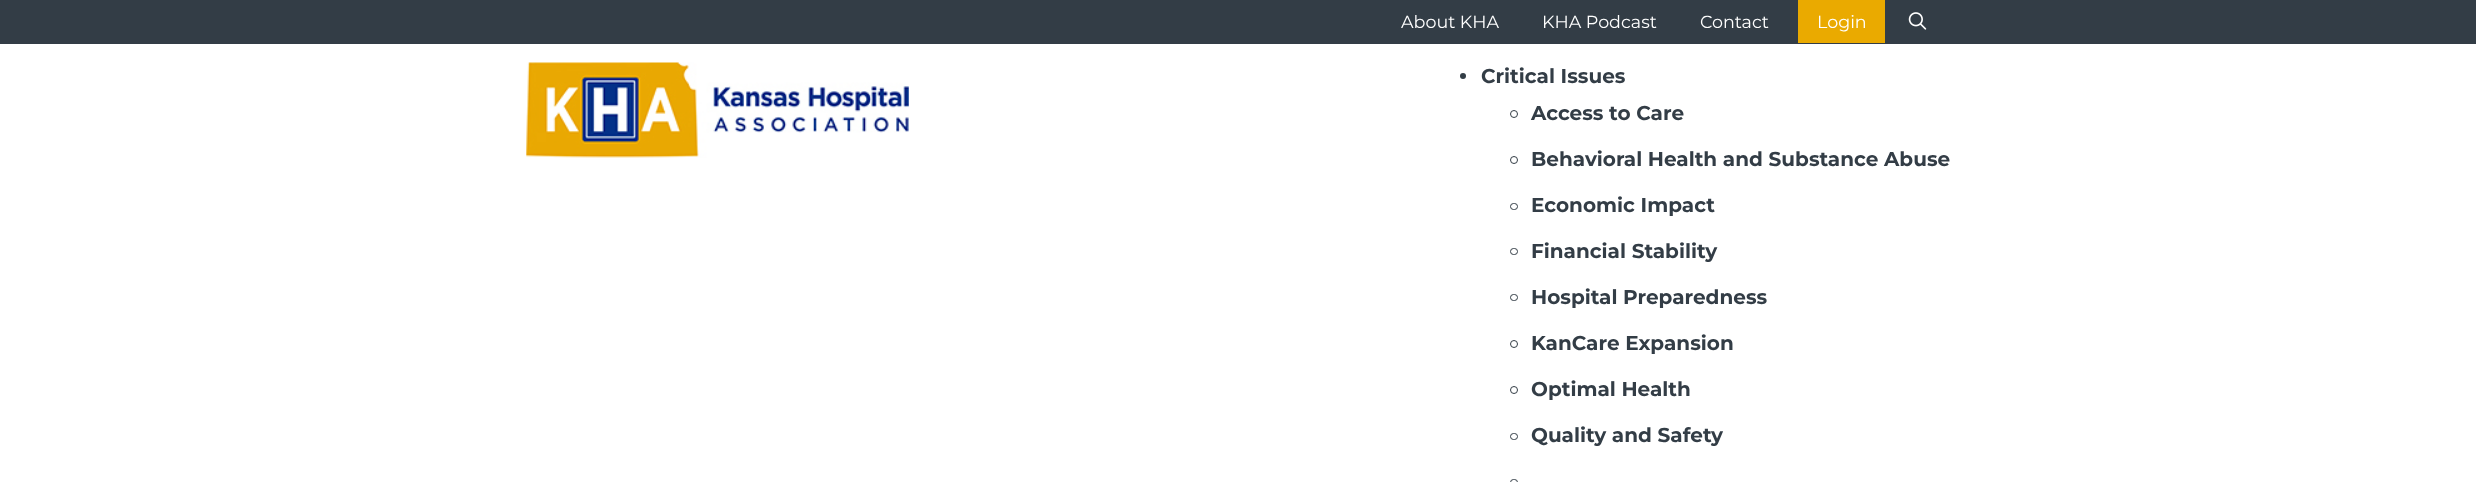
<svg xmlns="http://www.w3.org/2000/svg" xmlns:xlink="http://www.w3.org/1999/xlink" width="2476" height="482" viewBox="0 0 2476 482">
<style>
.cls-1{font:100 17.5px Montserrat;fill:#ffffff}
.cls-2{font:100 20px 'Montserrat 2';fill:#333d46}
</style>
<rect width="100%" height="100%" fill="#333d46"/>
<rect fill="#eaaa00" x="1798" y="0" width="87" height="43"/>
<image xlink:href="image0.png" x="1908" y="12" width="19" height="18"/>
<rect fill="#ffffff" x="0" y="44" width="2476" height="438"/>
<image xlink:href="image1.png" x="526" y="62" width="383" height="96"/>
<circle fill="#333d46" cx="1463" cy="76" r="3"/>
<circle fill="none" stroke="#333d46" cx="1514" cy="114" r="3.5"/>
<circle fill="none" stroke="#333d46" cx="1514" cy="160" r="3.5"/>
<rect fill="none" stroke="#333d46" x="1510.5" y="203.5" width="7" height="6" rx="3"/>
<rect fill="none" stroke="#333d46" x="1510.5" y="248.5" width="7" height="6" rx="3"/>
<rect fill="none" stroke="#333d46" x="1510.5" y="294.5" width="7" height="6" rx="3"/>
<circle fill="none" stroke="#333d46" cx="1514" cy="344" r="3.5"/>
<circle fill="none" stroke="#333d46" cx="1514" cy="390" r="3.5"/>
<rect fill="none" stroke="#333d46" x="1510.5" y="433.5" width="7" height="6" rx="3"/>
<rect fill="none" stroke="#333d46" x="1510.5" y="479.5" width="7" height="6" rx="3"/>
<text class="cls-1" x="1401" y="28">About KHA</text>
<text class="cls-1" x="1542" y="28">KHA Podcast</text>
<text class="cls-1" x="1700" y="28">Contact</text>
<text class="cls-1" x="1817" y="28">Login</text>
<text class="cls-2" x="1481" y="83">Critical Issues</text>
<text class="cls-2" x="1531" y="120">Access to Care</text>
<text class="cls-2" x="1531" y="166">Behavioral Health and Substance Abuse</text>
<text class="cls-2" x="1531" y="212">Economic Impact</text>
<text class="cls-2" x="1531" y="258">Financial Stability</text>
<text class="cls-2" x="1531" y="304">Hospital Preparedness</text>
<text class="cls-2" x="1531" y="350">KanCare Expansion</text>
<text class="cls-2" x="1531" y="396">Optimal Health</text>
<text class="cls-2" x="1531" y="442">Quality and Safety</text>
</svg>
